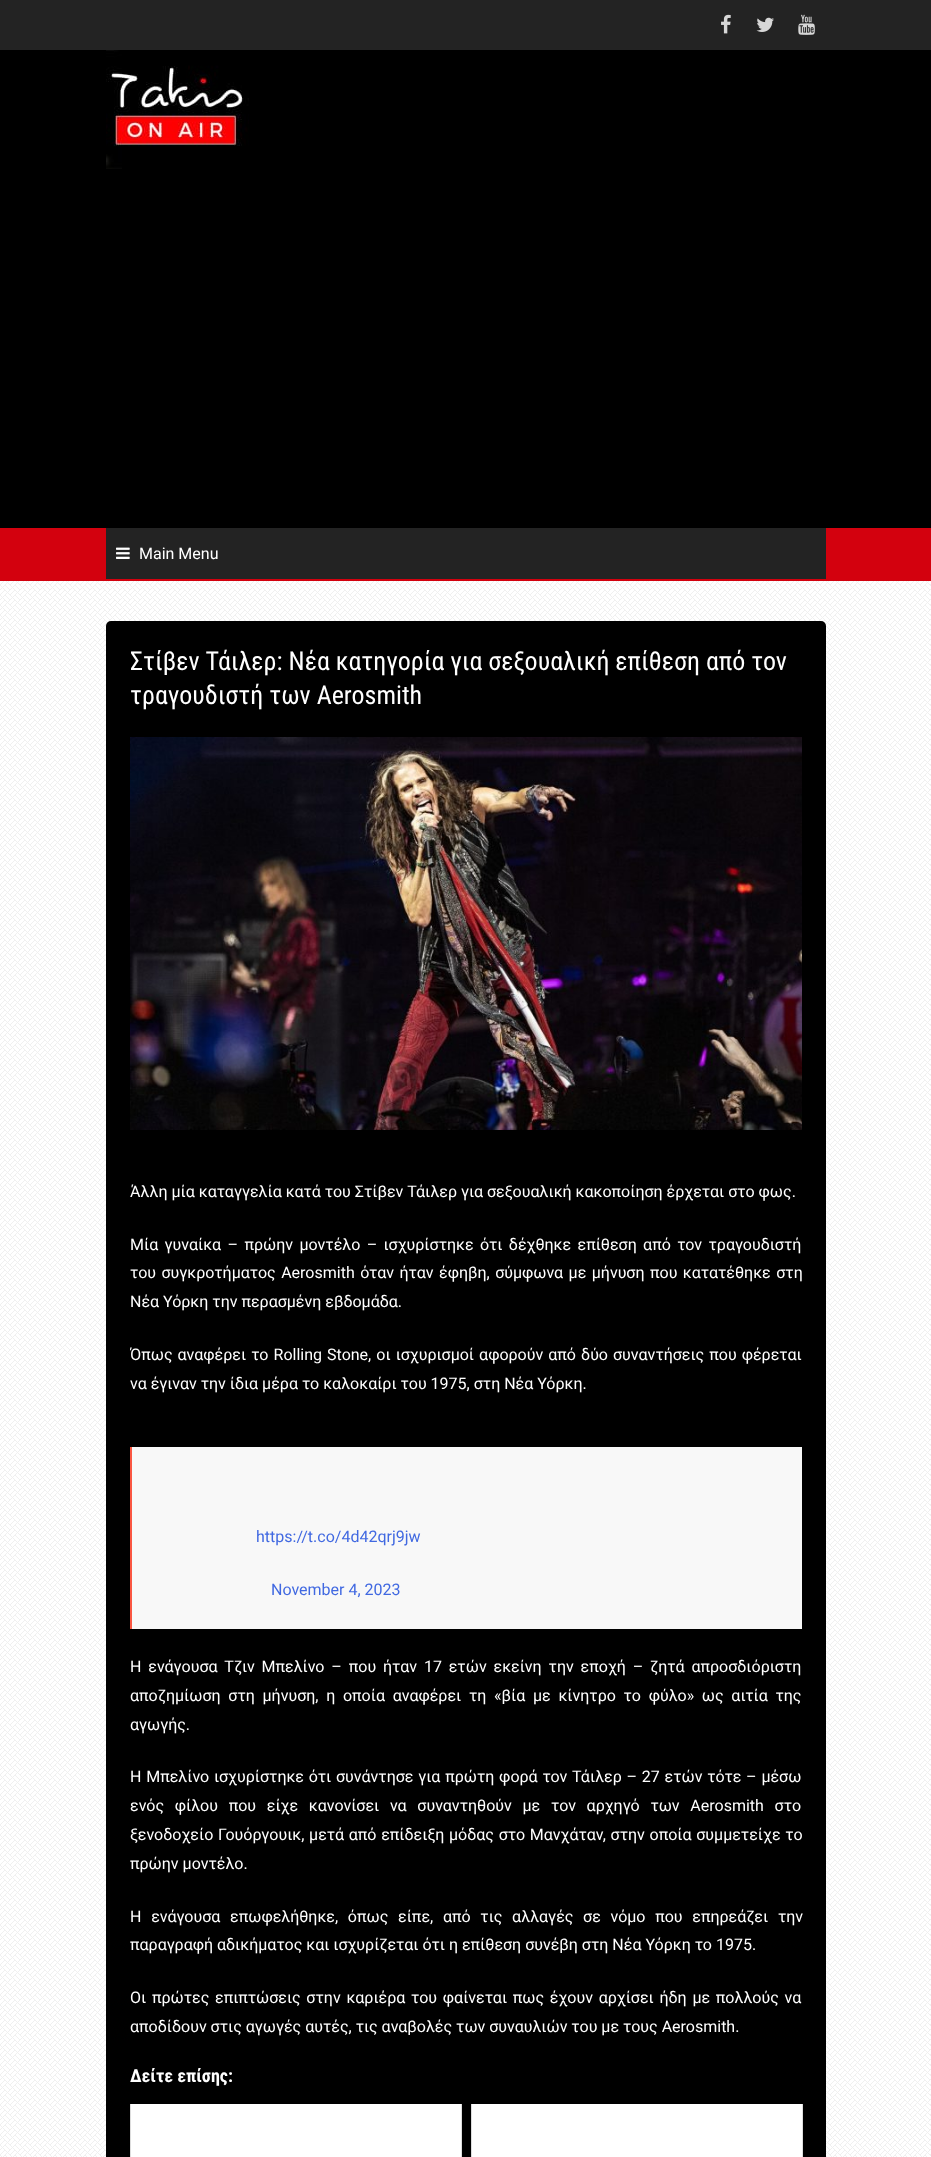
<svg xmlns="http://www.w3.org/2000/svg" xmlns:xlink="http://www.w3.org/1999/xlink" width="931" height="2157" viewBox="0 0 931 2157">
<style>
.cls-1{font:16px Roboto;fill:#ffffff}
.cls-2{font:26px Roboto Condensed;fill:#ffffff}
.cls-3{font:16px Roboto;fill:#4169e1}
.cls-4{font:bold 18px Roboto Condensed;fill:#ffffff}
</style>
<rect width="100%" height="100%" fill="#ffffff"/>
<image xlink:href="image0.png" x="0" y="581" width="931" height="1576"/>
<rect fill="#d3010e" x="0" y="528" width="931" height="53"/>
<rect fill="#232323" x="0" y="0" width="931" height="50"/>
<image xlink:href="image1.png" x="721" y="14" width="10" height="20"/>
<image xlink:href="image2.png" x="756" y="17" width="18" height="15"/>
<image xlink:href="image3.png" x="798" y="14" width="17" height="21"/>
<rect fill="#000000" x="0" y="50" width="931" height="478"/>
<image xlink:href="image4.png" x="106" y="50" width="143" height="119"/>
<rect fill="#232323" x="106" y="528" width="720" height="51"/>
<image xlink:href="image5.png" x="116" y="547" width="14" height="12"/>
<rect fill="#000000" x="106" y="621" width="720" height="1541" rx="5"/>
<image xlink:href="image6.png" x="130" y="737" width="672" height="393"/>
<rect fill="#f8f8f8" x="132" y="1447" width="670" height="182"/>
<rect fill="#fa5742" x="130" y="1447" width="2" height="182"/>
<rect fill="#ffffff" x="131" y="2104" width="330" height="53"/>
<rect fill="#dddddd" x="461" y="2104" width="1" height="53"/>
<rect fill="#dddddd" x="130" y="2104" width="1" height="53"/>
<rect fill="#ffffff" x="472" y="2104" width="330" height="53"/>
<rect fill="#dddddd" x="802" y="2104" width="1" height="53"/>
<rect fill="#dddddd" x="471" y="2104" width="1" height="53"/>
<text class="cls-1" x="139" y="559">Main Menu</text>
<text class="cls-2"><tspan x="130" y="670">Στίβεν Τάιλερ: Νέα κατηγορία για σεξουαλική επίθεση από τον</tspan><tspan x="130" y="704">τραγουδιστή των Aerosmith</tspan></text>
<text class="cls-1" x="130" y="1197">Άλλη μία καταγγελία κατά του Στίβεν Τάιλερ για σεξουαλική κακοποίηση έρχεται στο φως.</text>
<text class="cls-1"><tspan x="130" y="1250" word-spacing="2.4">Μία γυναίκα – πρώην μοντέλο – ισχυρίστηκε ότι δέχθηκε επίθεση από τον τραγουδιστή</tspan><tspan x="130" y="1278" word-spacing="1.5">του συγκροτήματος Aerosmith όταν ήταν έφηβη, σύμφωνα με μήνυση που κατατέθηκε στη</tspan><tspan x="130" y="1307">Νέα Υόρκη την περασμένη εβδομάδα.</tspan></text>
<text class="cls-1"><tspan x="130" y="1360" word-spacing="1.1">Όπως αναφέρει το Rolling Stone, οι ισχυρισμοί αφορούν από δύο συναντήσεις που φέρεται</tspan><tspan x="130" y="1389">να έγιναν την ίδια μέρα το καλοκαίρι του 1975, στη Νέα Υόρκη.</tspan></text>
<text class="cls-3" x="256" y="1542">https://t.co/4d42qrj9jw</text>
<text class="cls-3" x="271" y="1595">November 4, 2023</text>
<text class="cls-1"><tspan x="130" y="1672" word-spacing="2.9">Η ενάγουσα Τζιν Μπελίνο – που ήταν 17 ετών εκείνη την εποχή – ζητά απροσδιόριστη</tspan><tspan x="130" y="1701" word-spacing="3.75">αποζημίωση στη μήνυση, η οποία αναφέρει τη «βία με κίνητρο το φύλο» ως αιτία της</tspan><tspan x="130" y="1730">αγωγής.</tspan></text>
<text class="cls-1"><tspan x="130" y="1782" word-spacing="0.8">Η Μπελίνο ισχυρίστηκε ότι συνάντησε για πρώτη φορά τον Τάιλερ – 27 ετών τότε – μέσω</tspan><tspan x="130" y="1811" word-spacing="6.75">ενός φίλου που είχε κανονίσει να συναντηθούν με τον αρχηγό των Aerosmith στο</tspan><tspan x="130" y="1840" word-spacing="0.75">ξενοδοχείο Γουόργουικ, μετά από επίδειξη μόδας στο Μανχάταν, στην οποία συμμετείχε το</tspan><tspan x="130" y="1869">πρώην μοντέλο.</tspan></text>
<text class="cls-1"><tspan x="130" y="1922" word-spacing="5.75">Η ενάγουσα επωφελήθηκε, όπως είπε, από τις αλλαγές σε νόμο που επηρεάζει την</tspan><tspan x="130" y="1950">παραγραφή αδικήματος και ισχυρίζεται ότι η επίθεση συνέβη στη Νέα Υόρκη το 1975.</tspan></text>
<text class="cls-1"><tspan x="130" y="2003" word-spacing="1.75">Οι πρώτες επιπτώσεις στην καριέρα του φαίνεται πως έχουν αρχίσει ήδη με πολλούς να</tspan><tspan x="130" y="2032">αποδίδουν στις αγωγές αυτές, τις αναβολές των συναυλιών του με τους Aerosmith.</tspan></text>
<text class="cls-4" x="130" y="2082">Δείτε επίσης:</text>
</svg>
